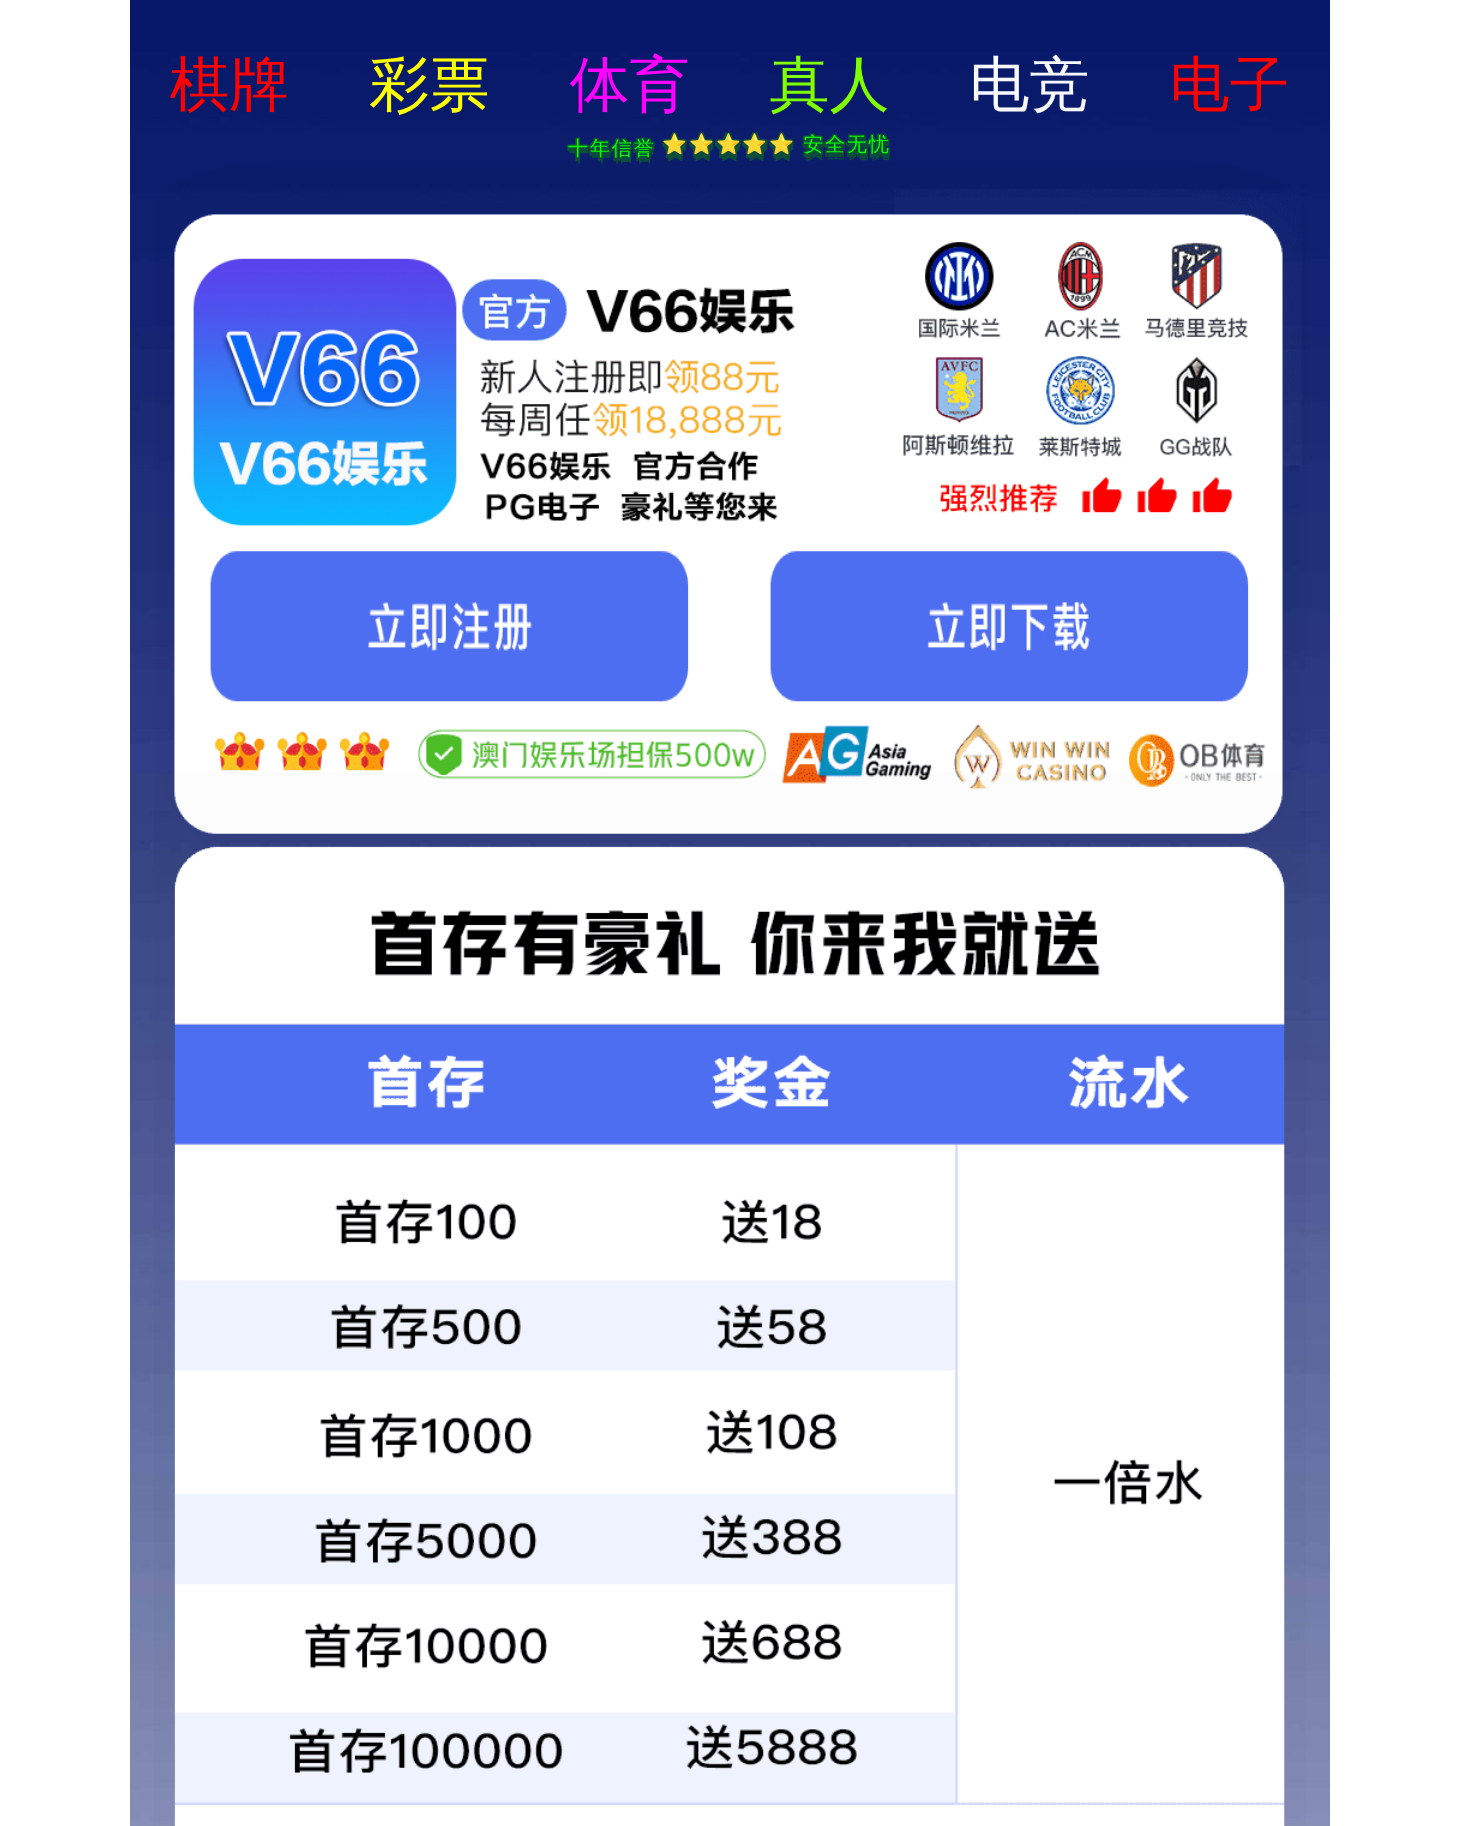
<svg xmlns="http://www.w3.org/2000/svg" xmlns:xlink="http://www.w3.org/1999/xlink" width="1458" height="1826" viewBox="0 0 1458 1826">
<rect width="100%" height="100%" fill="#ffffff"/>
<image xlink:href="image0.png" x="130" y="0" width="1200" height="1826"/>
</svg>
